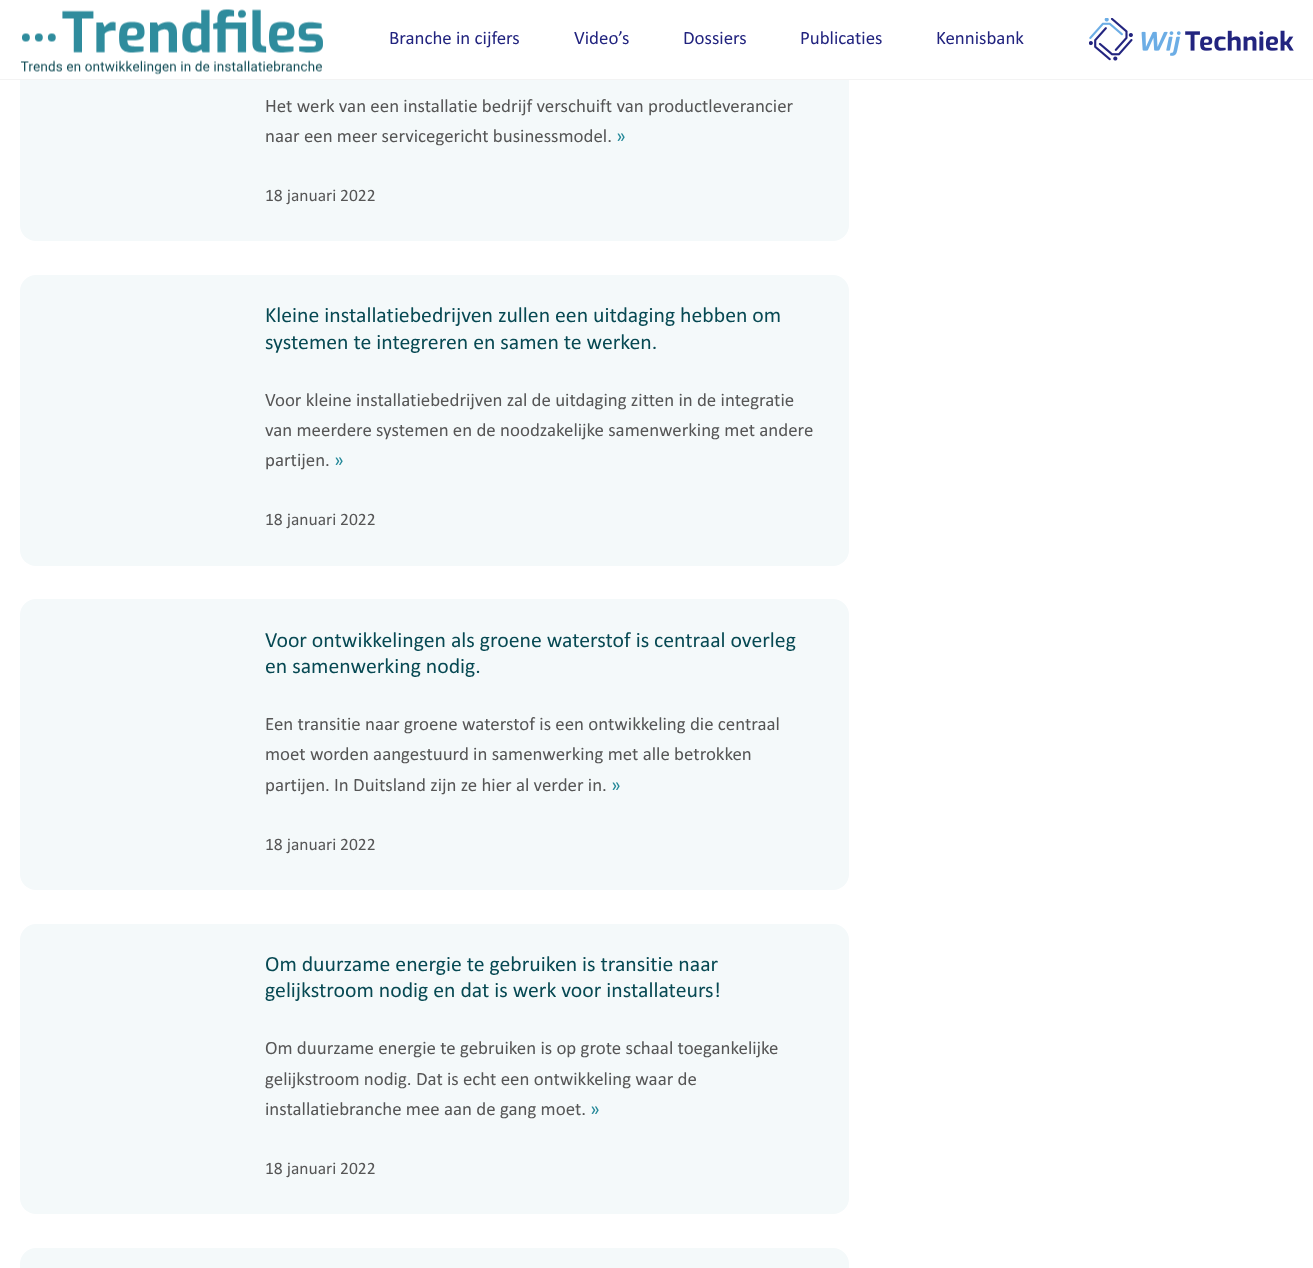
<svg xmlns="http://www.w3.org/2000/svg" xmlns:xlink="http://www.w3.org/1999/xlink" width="1313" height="1268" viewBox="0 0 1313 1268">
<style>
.cls-1{font:18.9px calibri;fill:#22247f}
.cls-2{font:18.9px calibri;fill:#565656}
.cls-3{font:18.9px calibri;fill:#258999}
.cls-4{font:17.5px calibri;fill:#565656}
.cls-5{font:21.75px calibri;fill:#074953}
</style>
<rect width="100%" height="100%" fill="#ffffff"/>
<rect fill="#f4f9fa" x="20" y="-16" width="829" height="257" rx="16"/>
<rect fill="#ffffff" x="20" y="0" width="829" height="79"/>
<rect fill="#f3f3f3" x="0" y="79" width="1313" height="1"/>
<image xlink:href="image0.png" x="21" y="9" width="302" height="66"/>
<image xlink:href="image1.png" x="1089" y="18" width="205" height="43"/>
<rect fill="#f4f9fa" x="20" y="275" width="829" height="291" rx="16"/>
<rect fill="#f4f9fa" x="20" y="599" width="829" height="291" rx="16"/>
<rect fill="#f4f9fa" x="20" y="924" width="829" height="290" rx="16"/>
<rect fill="#f4f9fa" x="20" y="1248" width="829" height="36" rx="16"/>
<text class="cls-1" x="389" y="44">Branche in cijfers</text>
<text class="cls-1" x="574" y="44">Video’s</text>
<text class="cls-1" x="683" y="44">Dossiers</text>
<text class="cls-1" x="800" y="44">Publicaties</text>
<text class="cls-1" x="936" y="44">Kennisbank</text>
<text class="cls-2"><tspan x="265" y="112">Het werk van een installatie bedrijf verschuift van productleverancier</tspan><tspan x="265" y="142">naar een meer servicegericht businessmodel.</tspan></text>
<text class="cls-3" x="616" y="142">»</text>
<text class="cls-4" x="265" y="201">18 januari 2022</text>
<text class="cls-5"><tspan x="265" y="322">Kleine installatiebedrijven zullen een uitdaging hebben om</tspan><tspan x="265" y="349">systemen te integreren en samen te werken.</tspan></text>
<text class="cls-2"><tspan x="265" y="406">Voor kleine installatiebedrijven zal de uitdaging zitten in de integratie</tspan><tspan x="265" y="436">van meerdere systemen en de noodzakelijke samenwerking met andere</tspan><tspan x="265" y="466">partijen.</tspan></text>
<text class="cls-3" x="334" y="466">»</text>
<text class="cls-4" x="265" y="525">18 januari 2022</text>
<text class="cls-5"><tspan x="265" y="647">Voor ontwikkelingen als groene waterstof is centraal overleg</tspan><tspan x="265" y="673">en samenwerking nodig.</tspan></text>
<text class="cls-2"><tspan x="265" y="730">Een transitie naar groene waterstof is een ontwikkeling die centraal</tspan><tspan x="265" y="760">moet worden aangestuurd in samenwerking met alle betrokken</tspan><tspan x="265" y="791">partijen. In Duitsland zijn ze hier al verder in.</tspan></text>
<text class="cls-3" x="611" y="791">»</text>
<text class="cls-4" x="265" y="850">18 januari 2022</text>
<text class="cls-5"><tspan x="265" y="971">Om duurzame energie te gebruiken is transitie naar</tspan><tspan x="265" y="997">gelijkstroom nodig en dat is werk voor installateurs!</tspan></text>
<text class="cls-2"><tspan x="265" y="1054">Om duurzame energie te gebruiken is op grote schaal toegankelijke</tspan><tspan x="265" y="1085">gelijkstroom nodig. Dat is echt een ontwikkeling waar de</tspan><tspan x="265" y="1115">installatiebranche mee aan de gang moet.</tspan></text>
<text class="cls-3" x="590" y="1115">»</text>
<text class="cls-4" x="265" y="1174">18 januari 2022</text>
</svg>
